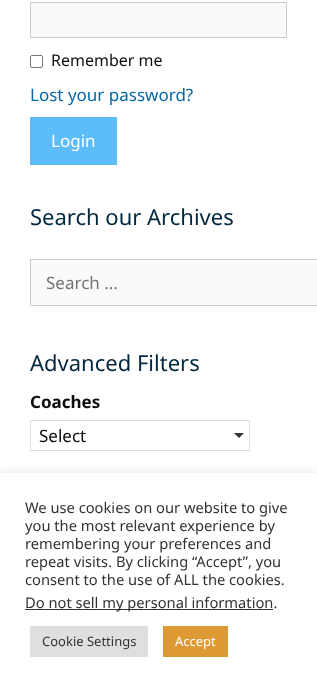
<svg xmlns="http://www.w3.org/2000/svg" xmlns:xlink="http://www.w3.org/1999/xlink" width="317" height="687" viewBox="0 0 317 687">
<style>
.cls-1{font:16px Noto Sans;fill:#0d0d0d}
.cls-2{font:17px Noto Sans;fill:#0568a6}
.cls-3{font:17px Noto Sans;fill:#ffffff}
.cls-4{font:22px Noto Sans;fill:#02283f}
.cls-5{font:17px Noto Sans;fill:#757575}
.cls-6{font:bold 17px Noto Sans;fill:#0d0d0d}
.cls-7{font:17px Noto Sans;fill:#0d0d0d}
.cls-8{font:14.7px Noto Sans;fill:#333333}
.cls-9{font:13px Noto Sans;fill:#333333}
.cls-10{font:13px Noto Sans;fill:#ffffff}
</style>
<rect width="100%" height="100%" fill="#ffffff"/>
<rect fill="#fafafa" stroke="#cccccc" x="30.5" y="2.5" width="256" height="35"/>
<rect fill="none" stroke="#767676" x="30.5" y="55.5" width="12" height="12" rx="1.5"/>
<rect fill="#5cbdfa" x="30" y="117" width="87" height="48"/>
<rect fill="#fafafa" stroke="#cccccc" x="30.5" y="259.5" width="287" height="46"/>
<rect fill="none" stroke="#dddddd" x="30.5" y="420.5" width="219" height="30"/>
<path fill="#333333" d="M234 433H244L239 438Z"/>
<rect fill="#acabab" fill-opacity="0.3" filter="blur(5px)" x="0" y="472" width="317" height="214"/>
<rect fill="#ffffff" x="0" y="473" width="317" height="214"/>
<rect fill="#333333" x="25" y="609" width="248" height="1"/>
<rect fill="#dedfe0" x="30" y="626" width="118" height="31"/>
<rect fill="#dd9933" x="163" y="626" width="65" height="31"/>
<text class="cls-1" x="51" y="66">Remember me</text>
<text class="cls-2" x="30" y="101">Lost your password?</text>
<text class="cls-3" x="51" y="147">Login</text>
<text class="cls-4" x="30" y="225">Search our Archives</text>
<text class="cls-5" x="46" y="289">Search ...</text>
<text class="cls-4" x="30" y="371">Advanced Filters</text>
<text class="cls-6" x="30" y="408">Coaches</text>
<text class="cls-7" x="39" y="442">Select</text>
<text class="cls-8"><tspan x="25" y="513">We use cookies on our website to give</tspan><tspan x="25" y="531">you the most relevant experience by</tspan><tspan x="25" y="549">remembering your preferences and</tspan><tspan x="25" y="567">repeat visits. By clicking “Accept”, you</tspan><tspan x="25" y="585">consent to the use of ALL the cookies.</tspan><tspan x="25" y="608">Do not sell my personal information.</tspan></text>
<text class="cls-9" x="42" y="646">Cookie Settings</text>
<text class="cls-10" x="175" y="646">Accept</text>
</svg>
